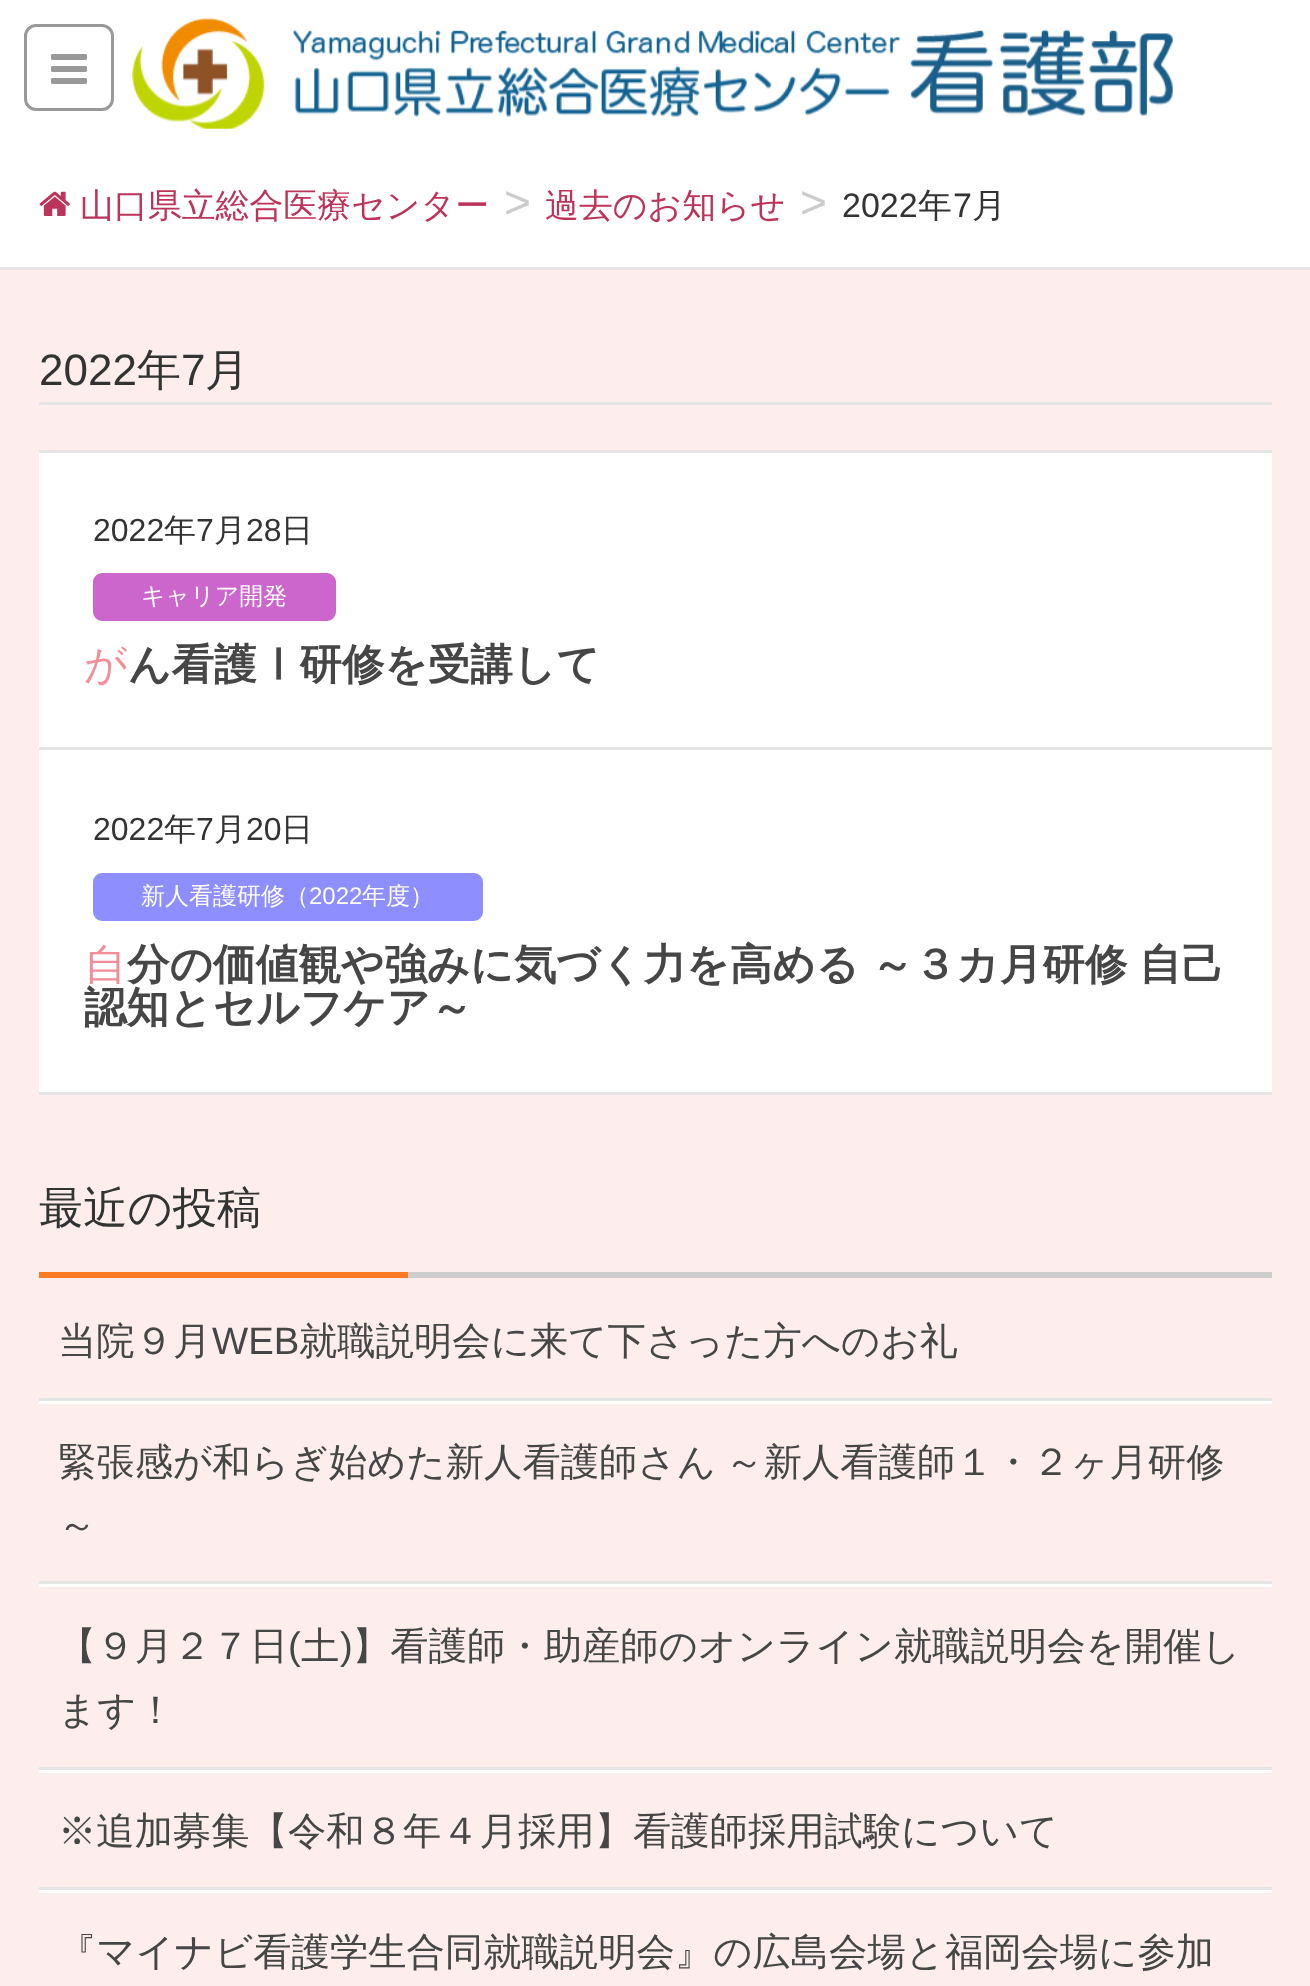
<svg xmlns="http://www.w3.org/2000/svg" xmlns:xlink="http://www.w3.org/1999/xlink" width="1310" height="1986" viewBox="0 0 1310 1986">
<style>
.cls-1{font:500 33.9px WenQuanYi Zen Hei;fill:#bc3459}
.cls-2{font:46px Liberation Sans;fill:#cccccc}
.cls-3{font:34px Liberation Sans;fill:#333333}
.cls-4{font:500 34px WenQuanYi Zen Hei;fill:#333333}
.cls-5{font:44px Liberation Sans;fill:#333333}
.cls-6{font:500 44px WenQuanYi Zen Hei;fill:#333333}
.cls-7{font:32px Liberation Sans;fill:#333333}
.cls-8{font:500 32px WenQuanYi Zen Hei;fill:#333333}
.cls-9{font:500 24px WenQuanYi Zen Hei;fill:#ffffff}
.cls-10{font:100 42.55px Noto Sans;fill:#f28e9a}
.cls-11{font:bold 42.55px WenQuanYi Zen Hei;fill:#464646}
.cls-12{font:24px Liberation Sans;fill:#ffffff}
.cls-13{font:500 44.25px WenQuanYi Zen Hei;fill:#333333}
.cls-14{font:500 38.35px WenQuanYi Zen Hei;fill:#464646}
.cls-15{font:38.35px Liberation Sans;fill:#464646}
</style>
<rect width="100%" height="100%" fill="#ffffff"/>
<rect fill="none" stroke="#999999" stroke-width="3" x="25.5" y="25.5" width="87" height="84" rx="10.5"/>
<image xlink:href="image0.png" x="51" y="54" width="36" height="30"/>
<image xlink:href="image1.png" x="132" y="18" width="1041" height="111"/>
<rect fill="#e5e5e5" x="0" y="267" width="1310" height="3"/>
<image xlink:href="image2.png" x="39" y="191" width="31" height="25"/>
<rect fill="#fdeeed" x="0" y="270" width="1310" height="1716"/>
<rect fill="#e5e5e5" x="39" y="402" width="1233" height="3"/>
<rect fill="#ffffff" x="39" y="453" width="1233" height="294"/>
<rect fill="#e5e5e5" x="39" y="450" width="1233" height="3"/>
<rect fill="#e5e5e5" x="39" y="747" width="1233" height="3"/>
<rect fill="#cc66cc" stroke="#cc66cc" stroke-width="3" x="94.5" y="574.5" width="240" height="45" rx="7.5"/>
<rect fill="#ffffff" x="39" y="750" width="1233" height="342"/>
<rect fill="#e5e5e5" x="39" y="1092" width="1233" height="3"/>
<rect fill="#8e8eff" stroke="#8e8eff" stroke-width="3" x="94.5" y="874.5" width="387" height="45" rx="7.5"/>
<rect fill="#cccccc" x="408" y="1272" width="864" height="6"/>
<rect fill="#fa7b23" x="39" y="1272" width="369" height="6"/>
<rect fill="#fffdfd" x="39" y="1401" width="1233" height="3"/>
<rect fill="#e5e5e5" x="39" y="1398" width="1233" height="3"/>
<rect fill="#fffdfd" x="39" y="1584" width="1233" height="3"/>
<rect fill="#e5e5e5" x="39" y="1581" width="1233" height="3"/>
<rect fill="#fffdfd" x="39" y="1770" width="1233" height="3"/>
<rect fill="#e5e5e5" x="39" y="1767" width="1233" height="3"/>
<rect fill="#fffdfd" x="39" y="1890" width="1233" height="3"/>
<rect fill="#e5e5e5" x="39" y="1887" width="1233" height="3"/>
<text class="cls-1" x="80" y="217">山口県立総合医療センター</text>
<text class="cls-2" x="504" y="218">&gt;</text>
<text class="cls-1" x="545" y="217">過去のお知らせ</text>
<text class="cls-2" x="800" y="218">&gt;</text>
<text class="cls-3" x="842" y="217">2022</text>
<text class="cls-4" x="918" y="217">年</text>
<text class="cls-3" x="953" y="217">7</text>
<text class="cls-4" x="972" y="217">月</text>
<text class="cls-5" x="39" y="385">2022</text>
<text class="cls-6" x="137" y="385">年</text>
<text class="cls-5" x="181" y="385">7</text>
<text class="cls-6" x="205" y="385">月</text>
<text class="cls-7" x="93" y="541">2022</text>
<text class="cls-8" x="164" y="541">年</text>
<text class="cls-7" x="196" y="541">7</text>
<text class="cls-8" x="214" y="541">月</text>
<text class="cls-7" x="246" y="541">28</text>
<text class="cls-8" x="281" y="541">日</text>
<text class="cls-9" x="141" y="604">キャリア開発</text>
<text class="cls-10" x="84" y="679">が</text>
<text class="cls-11" x="128" y="679">ん看護Ⅰ研修を受講して</text>
<text class="cls-7" x="93" y="840">2022</text>
<text class="cls-8" x="164" y="840">年</text>
<text class="cls-7" x="196" y="840">7</text>
<text class="cls-8" x="214" y="840">月</text>
<text class="cls-7" x="246" y="840">20</text>
<text class="cls-8" x="281" y="840">日</text>
<text class="cls-9" x="141" y="904">新人看護研修（</text>
<text class="cls-12" x="309" y="904">2022</text>
<text class="cls-9" x="362" y="904">年度）</text>
<text class="cls-10" x="84" y="979">自</text>
<text class="cls-11" x="127" y="979" word-spacing="-1">分の価値観や強みに気づく力を高める ～３カ月研修 自己</text>
<text class="cls-11" x="84" y="1022">認知とセルフケア～</text>
<text class="cls-13" x="39" y="1223">最近の投稿</text>
<text class="cls-14" x="58" y="1354">当院９月</text>
<text class="cls-15" x="212" y="1354">WEB</text>
<text class="cls-14" x="299" y="1354">就職説明会に来て下さった方へのお礼</text>
<text class="cls-14"><tspan x="58" y="1475" word-spacing="-2">緊張感が和らぎ始めた新人看護師さん ～新人看護師１・２ヶ月研修</tspan><tspan x="58" y="1538">～</tspan></text>
<text class="cls-14" x="58" y="1659">【９月２７日</text>
<text class="cls-15" x="288" y="1659">(</text>
<text class="cls-14" x="301" y="1659">土</text>
<text class="cls-15" x="340" y="1659">)</text>
<text class="cls-14" x="352" y="1659">】看護師・助産師のオンライン就職説明会を開催し</text>
<text class="cls-14" x="58" y="1723">ます！</text>
<text class="cls-14" x="58" y="1844">※追加募集【令和８年４月採用】看護師採用試験について</text>
<text class="cls-14" x="58" y="1965">『マイナビ看護学生合同就職説明会』の広島会場と福岡会場に参加</text>
</svg>
